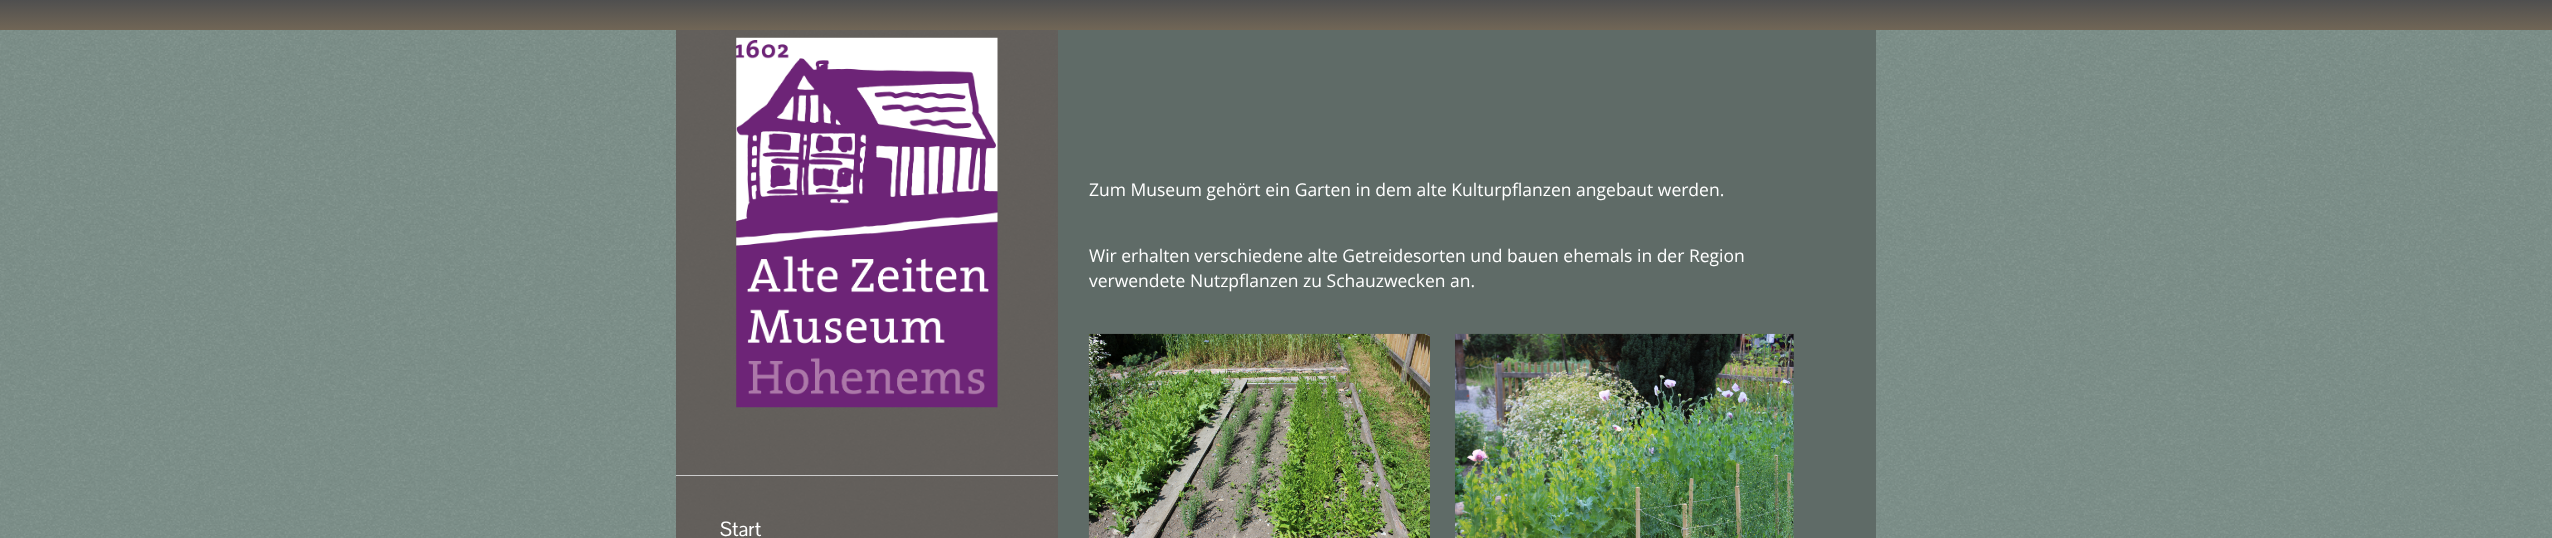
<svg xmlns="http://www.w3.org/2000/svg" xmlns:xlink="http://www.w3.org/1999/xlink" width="2552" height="538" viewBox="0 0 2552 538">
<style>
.cls-1{font:17.5px Open Sans;fill:#ffffff}
.cls-2{font:20px Pontano Sans;fill:#ffffff}
</style>
<defs>
<linearGradient id="g1" gradientUnits="userSpaceOnUse" x1="1276" y1="0" x2="1276" y2="30"><stop offset="0" stop-color="#4f4f4f"/><stop offset="1" stop-color="#716656"/></linearGradient>
</defs>
<rect width="100%" height="100%" fill="#7d908a"/>
<image xlink:href="image0.png" x="0" y="30" width="2552" height="508"/>
<rect fill="url(#g1)" x="0" y="0" width="2552" height="30"/>
<rect fill="#5f6b67" x="1058" y="30" width="818" height="508"/>
<image xlink:href="image1.png" x="1088" y="333" width="342" height="205"/>
<image xlink:href="image2.png" x="1455" y="333" width="339" height="205"/>
<rect fill="#5e5552" fill-opacity="0.83" x="676" y="30" width="382" height="508"/>
<image xlink:href="image3.png" x="736" y="37" width="262" height="371"/>
<rect fill="#cccccc" x="676" y="475" width="382" height="1"/>
<text class="cls-1" x="1089" y="196">Zum Museum gehört ein Garten in dem alte Kulturpflanzen angebaut werden.</text>
<text class="cls-1"><tspan x="1089" y="262">Wir erhalten verschiedene alte Getreidesorten und bauen ehemals in der Region</tspan><tspan x="1089" y="287">verwendete Nutzpflanzen zu Schauzwecken an.</tspan></text>
<text class="cls-2" x="720" y="536">Start</text>
</svg>
